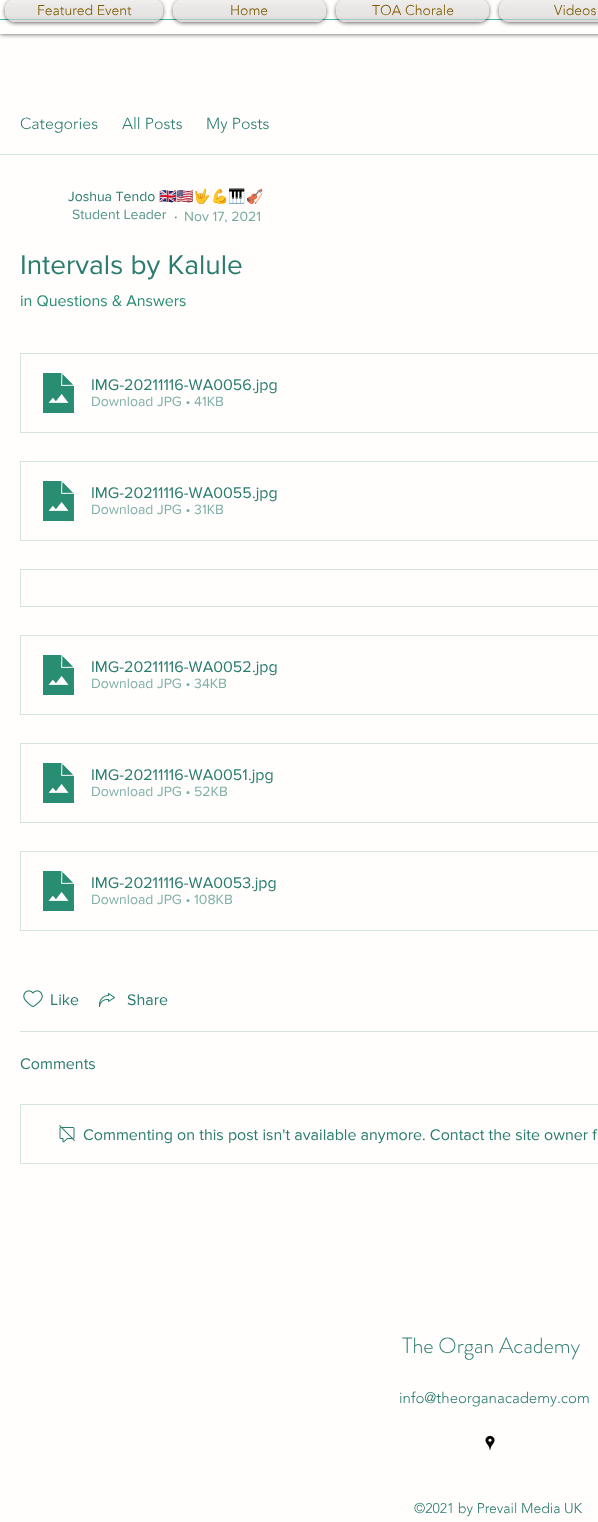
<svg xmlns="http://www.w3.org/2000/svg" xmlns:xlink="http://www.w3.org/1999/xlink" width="598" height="1522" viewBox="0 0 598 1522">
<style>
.cls-1{font:300 14px 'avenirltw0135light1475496';fill:#7e5a00}
.cls-2{font:300 16px 'avenirltw0135light1475496';fill:#2a7c6f}
.cls-3{font:14px 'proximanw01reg';fill:#2a7c6f}
.cls-4{font:14px Noto Color Emoji;fill:#2a7c6f}
.cls-5{font:14px 'proximanw01reg';fill:#55968b}
.cls-6{font:bold 14px 'proximanw01reg';fill:#55968b}
.cls-7{font:14px 'proximanw01reg';fill:#77aba2}
.cls-8{font:28px 'proximanw01reg';fill:#2a7c6f}
.cls-9{font:16px 'proximanw01reg';fill:#298d74}
.cls-10{font:16px 'proximanw01reg';fill:#2a7c6f}
.cls-11{font:14px 'proximanw01reg';fill:#7fb0a7}
.cls-12{font:300 22px 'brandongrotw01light';fill:#2a7c6f}
.cls-13{font:300 15px 'avenirltw0135light1475496';fill:#2a7c6f}
.cls-14{font:300 14px 'avenirltw0135light1475496';fill:#2a7c6f}
</style>
<defs>
<clipPath id="clip1"><rect x="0" y="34" width="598" height="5"/></clipPath>
<clipPath id="clip2"><path d="M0 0H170V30H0ZM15-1H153C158.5-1 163 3.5 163 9V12C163 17.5 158.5 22 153 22H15C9.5 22 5 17.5 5 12V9C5 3.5 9.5-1 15-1Z" clip-rule="evenodd"/></clipPath>
<clipPath id="clip3"><path d="M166 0H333V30H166ZM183-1H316C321.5-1 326 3.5 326 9V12C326 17.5 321.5 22 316 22H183C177.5 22 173 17.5 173 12V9C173 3.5 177.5-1 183-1Z" clip-rule="evenodd"/></clipPath>
<clipPath id="clip4"><path d="M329 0H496V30H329ZM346-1H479C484.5-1 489 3.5 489 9V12C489 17.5 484.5 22 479 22H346C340.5 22 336 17.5 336 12V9C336 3.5 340.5-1 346-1Z" clip-rule="evenodd"/></clipPath>
<clipPath id="clip5"><path d="M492 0H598V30H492ZM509-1H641C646.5-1 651 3.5 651 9V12C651 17.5 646.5 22 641 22H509C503.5 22 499 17.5 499 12V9C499 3.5 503.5-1 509-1Z" clip-rule="evenodd"/></clipPath>
</defs>
<rect width="100%" height="100%" fill="#fffefc"/>
<g clip-path="url(#clip1)">
<rect fill="#000000" fill-opacity="0.7" filter="blur(2.5px)" x="0" y="-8" width="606" height="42"/>
</g>
<rect fill="#40bca8" x="0" y="19" width="598" height="1"/>
<g clip-path="url(#clip2)">
<rect fill="#000000" fill-opacity="0.6" filter="blur(2px)" x="5" y="0" width="158" height="23" rx="10"/>
</g>
<rect fill="#fffefc" fill-opacity="0.6" x="5" y="-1" width="158" height="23" rx="10"/>
<image xlink:href="image0.png" x="8" y="2" width="153" height="18"/>
<image xlink:href="image1.png" x="5" y="0" width="158" height="22"/>
<g clip-path="url(#clip3)">
<rect fill="#000000" fill-opacity="0.6" filter="blur(2px)" x="173" y="0" width="153" height="23" rx="10"/>
</g>
<rect fill="#fffefc" fill-opacity="0.6" x="173" y="-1" width="153" height="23" rx="10"/>
<image xlink:href="image2.png" x="176" y="2" width="148" height="18"/>
<image xlink:href="image3.png" x="173" y="0" width="153" height="22"/>
<g clip-path="url(#clip4)">
<rect fill="#000000" fill-opacity="0.6" filter="blur(2px)" x="336" y="0" width="153" height="23" rx="10"/>
</g>
<rect fill="#fffefc" fill-opacity="0.6" x="336" y="-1" width="153" height="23" rx="10"/>
<image xlink:href="image2.png" x="339" y="2" width="148" height="18"/>
<image xlink:href="image3.png" x="336" y="0" width="153" height="22"/>
<g clip-path="url(#clip5)">
<rect fill="#000000" fill-opacity="0.6" filter="blur(2px)" x="499" y="0" width="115" height="23" rx="10"/>
</g>
<rect fill="#fffefc" fill-opacity="0.6" x="499" y="-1" width="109" height="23" rx="10"/>
<image xlink:href="image4.png" x="502" y="19" width="96" height="1"/>
<image xlink:href="image5.png" x="499" y="0" width="99" height="22"/>
<rect fill="#d4e4e0" x="0" y="154" width="598" height="1"/>
<rect fill="none" stroke="#d4e4e0" x="20.5" y="353.5" width="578" height="79"/>
<image xlink:href="image6.png" x="42" y="372" width="33" height="42"/>
<rect fill="none" stroke="#d4e4e0" x="20.5" y="461.5" width="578" height="79"/>
<image xlink:href="image6.png" x="42" y="480" width="33" height="42"/>
<rect fill="none" stroke="#d4e4e0" x="20.5" y="569.5" width="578" height="37"/>
<rect fill="none" stroke="#d4e4e0" x="20.5" y="635.5" width="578" height="79"/>
<image xlink:href="image6.png" x="42" y="654" width="33" height="42"/>
<rect fill="none" stroke="#d4e4e0" x="20.5" y="743.5" width="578" height="79"/>
<image xlink:href="image6.png" x="42" y="762" width="33" height="42"/>
<rect fill="none" stroke="#d4e4e0" x="20.5" y="851.5" width="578" height="79"/>
<image xlink:href="image6.png" x="42" y="870" width="33" height="42"/>
<image xlink:href="image7.png" x="23" y="990" width="20" height="18"/>
<image xlink:href="image8.png" x="99" y="993" width="16" height="14"/>
<rect fill="#d4e4e0" x="20" y="1031" width="578" height="1"/>
<rect fill="none" stroke="#d4e4e0" x="20.5" y="1104.5" width="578" height="59"/>
<image xlink:href="image9.png" x="59" y="1125" width="16" height="18"/>
<image xlink:href="image10.png" x="485" y="1435" width="10" height="15"/>
<text class="cls-1" x="37" y="15">Featured Event</text>
<text class="cls-1" x="230" y="15">Home</text>
<text class="cls-1" x="372" y="15">TOA Chorale</text>
<text class="cls-1" x="554" y="15">Videos</text>
<text class="cls-2" x="20" y="129">Categories</text>
<text class="cls-2" x="122" y="129">All Posts</text>
<text class="cls-2" x="206" y="129">My Posts</text>
<text class="cls-3" x="68" y="201">Joshua Tendo</text>
<text class="cls-4" x="159" y="201">🇬🇧🇺🇲🤟💪🎹🎻</text>
<text class="cls-5" x="72" y="219">Student Leader</text>
<text class="cls-6" x="174" y="221">·</text>
<text class="cls-7" x="184" y="221">Nov 17, 2021</text>
<text class="cls-8" x="20" y="274">Intervals by Kalule</text>
<text class="cls-9" x="20" y="306">in Questions &amp; Answers</text>
<text class="cls-10" x="91" y="390">IMG-20211116-WA0056</text>
<text class="cls-10" x="252" y="390">.jpg</text>
<text class="cls-11" x="91" y="406">Download JPG • 41KB</text>
<text class="cls-10" x="91" y="498">IMG-20211116-WA0055</text>
<text class="cls-10" x="252" y="498">.jpg</text>
<text class="cls-11" x="91" y="514">Download JPG • 31KB</text>
<text class="cls-10" x="91" y="672">IMG-20211116-WA0052</text>
<text class="cls-10" x="252" y="672">.jpg</text>
<text class="cls-11" x="91" y="688">Download JPG • 34KB</text>
<text class="cls-10" x="91" y="780">IMG-20211116-WA0051</text>
<text class="cls-10" x="248" y="780">.jpg</text>
<text class="cls-11" x="91" y="796">Download JPG • 52KB</text>
<text class="cls-10" x="91" y="888">IMG-20211116-WA0053</text>
<text class="cls-10" x="251" y="888">.jpg</text>
<text class="cls-11" x="91" y="904">Download JPG • 108KB</text>
<text class="cls-10" x="50" y="1005">Like</text>
<text class="cls-10" x="127" y="1005">Share</text>
<text class="cls-10" x="20" y="1069">Comments</text>
<text class="cls-10" x="83" y="1140">Commenting on this post isn't available anymore. Contact the site owner f</text>
<text class="cls-12" x="402" y="1353">The Organ Academy</text>
<text class="cls-13" x="399" y="1403">info@theorganacademy.com</text>
<text class="cls-14" x="414" y="1513">©2021 by Prevail Media UK</text>
</svg>
